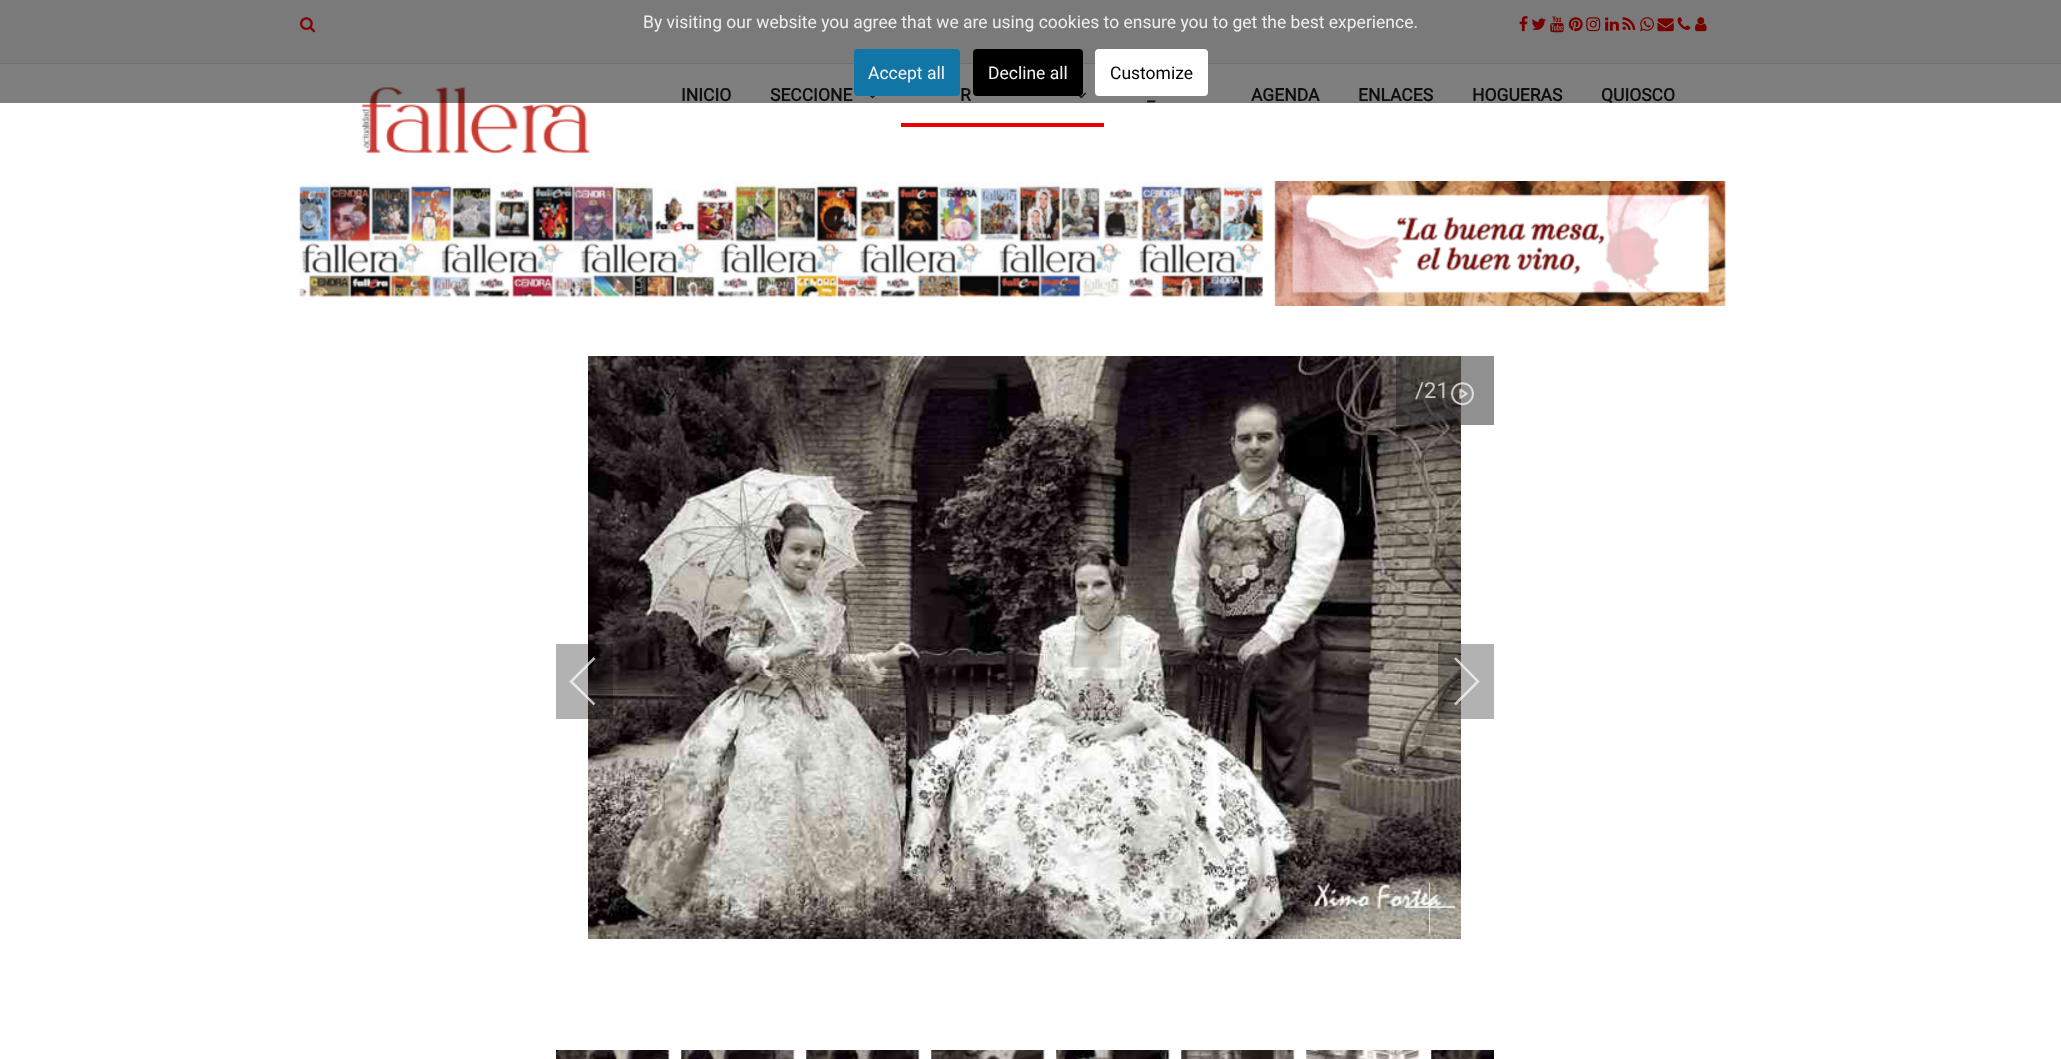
<svg xmlns="http://www.w3.org/2000/svg" xmlns:xlink="http://www.w3.org/1999/xlink" width="2061" height="1059" viewBox="0 0 2061 1059">
<style>
.cls-1{font:bold 17.5px Roboto;fill:#1c1c1c}
.cls-2{font:17.5px Roboto;fill:#000000}
.cls-3{font:17.5px Roboto;fill:#f5f5f5}
.cls-4{font:17.5px Roboto;fill:#eeeeee}
.cls-5{font:22px Roboto;fill:#c7c6c5}
</style>
<rect width="100%" height="100%" fill="#ffffff"/>
<rect fill="#f5f5f5" x="0" y="0" width="2061" height="63"/>
<rect fill="#dedede" x="0" y="63" width="2061" height="1"/>
<image xlink:href="image0.png" x="300" y="17" width="16" height="16"/>
<image xlink:href="image1.png" x="1519" y="16" width="9" height="16"/>
<image xlink:href="image2.png" x="1531" y="18" width="15" height="12"/>
<image xlink:href="image3.png" x="1550" y="16" width="14" height="17"/>
<image xlink:href="image4.png" x="1568" y="17" width="15" height="15"/>
<image xlink:href="image5.png" x="1586" y="17" width="15" height="15"/>
<image xlink:href="image6.png" x="1605" y="17" width="14" height="14"/>
<image xlink:href="image7.png" x="1622" y="17" width="14" height="13"/>
<image xlink:href="image8.png" x="1640" y="17" width="14" height="15"/>
<image xlink:href="image9.png" x="1657" y="18" width="17" height="14"/>
<image xlink:href="image10.png" x="1677" y="17" width="14" height="13"/>
<image xlink:href="image11.png" x="1695" y="17" width="12" height="15"/>
<image xlink:href="image12.png" x="361" y="87" width="229" height="67"/>
<image xlink:href="image13.png" x="870" y="96" width="5" height="3"/>
<image xlink:href="image14.png" x="1079" y="92" width="8" height="7"/>
<rect fill="#ec0000" x="901" y="123" width="203" height="4"/>
<image xlink:href="image15.png" x="299" y="181" width="964" height="117"/>
<image xlink:href="image16.png" x="1274" y="181" width="452" height="125"/>
<image xlink:href="image17.png" x="588" y="356" width="873" height="583"/>
<rect fill="#ffffff" fill-opacity="0.7" x="1429" y="883" width="1" height="50"/>
<rect fill="#ffffff" fill-opacity="0.7" x="1405" y="906" width="50" height="2"/>
<rect fill="#222222" fill-opacity="0.5" x="1396" y="356" width="98" height="69"/>
<image xlink:href="image18.png" x="1451" y="382" width="23" height="24"/>
<rect fill="#000000" fill-opacity="0.3" x="556" y="644" width="57" height="75"/>
<path fill="none" stroke="#ffffff" stroke-opacity="0.7" stroke-width="2.5" d="M594.5 658L571 681.5L594.5 704.5"/>
<rect fill="#000000" fill-opacity="0.3" x="1438" y="644" width="56" height="75"/>
<path fill="none" stroke="#ffffff" stroke-opacity="0.7" stroke-width="2.5" d="M1455 704.5L1478 681.5L1455 658"/>
<image xlink:href="image19.png" x="556" y="1050" width="114" height="9"/>
<image xlink:href="image20.png" x="681" y="1050" width="114" height="9"/>
<image xlink:href="image21.png" x="806" y="1050" width="114" height="9"/>
<image xlink:href="image22.png" x="931" y="1050" width="114" height="9"/>
<image xlink:href="image23.png" x="1056" y="1050" width="114" height="9"/>
<image xlink:href="image24.png" x="1181" y="1050" width="114" height="9"/>
<image xlink:href="image25.png" x="1306" y="1050" width="114" height="9"/>
<image xlink:href="image26.png" x="1431" y="1050" width="63" height="9"/>
<text class="cls-1" x="681" y="101">INICIO</text>
<text class="cls-1" x="770" y="101">SECCIONE</text>
<text class="cls-1" x="960" y="101">R</text>
<text class="cls-1" x="1147" y="101">_</text>
<text class="cls-1" x="1251" y="101">AGENDA</text>
<text class="cls-1" x="1358" y="101">ENLACES</text>
<text class="cls-1" x="1472" y="101">HOGUERAS</text>
<text class="cls-1" x="1601" y="101">QUIOSCO</text>
<rect fill="#000000" fill-opacity="0.5" x="0" y="0" width="2061" height="103"/>
<rect fill="#ffffff" stroke="#ffffff" stroke-width="3" x="1096.5" y="50.5" width="110" height="44" rx="2.5"/>
<text class="cls-2" x="1110" y="79">Customize</text>
<rect fill="#000000" stroke="#000000" stroke-width="3" x="974.5" y="50.5" width="107" height="44" rx="2.5"/>
<text class="cls-3" x="988" y="79">Decline all</text>
<rect fill="#1176a6" stroke="#1176a6" stroke-width="3" x="855.5" y="50.5" width="103" height="44" rx="2.5"/>
<text class="cls-3" x="868" y="79">Accept all</text>
<text class="cls-4" x="643" y="28">By visiting our website you agree that we are using cookies to ensure you to get the best experience.</text>
<text class="cls-5" x="1415" y="398">/21</text>
</svg>
